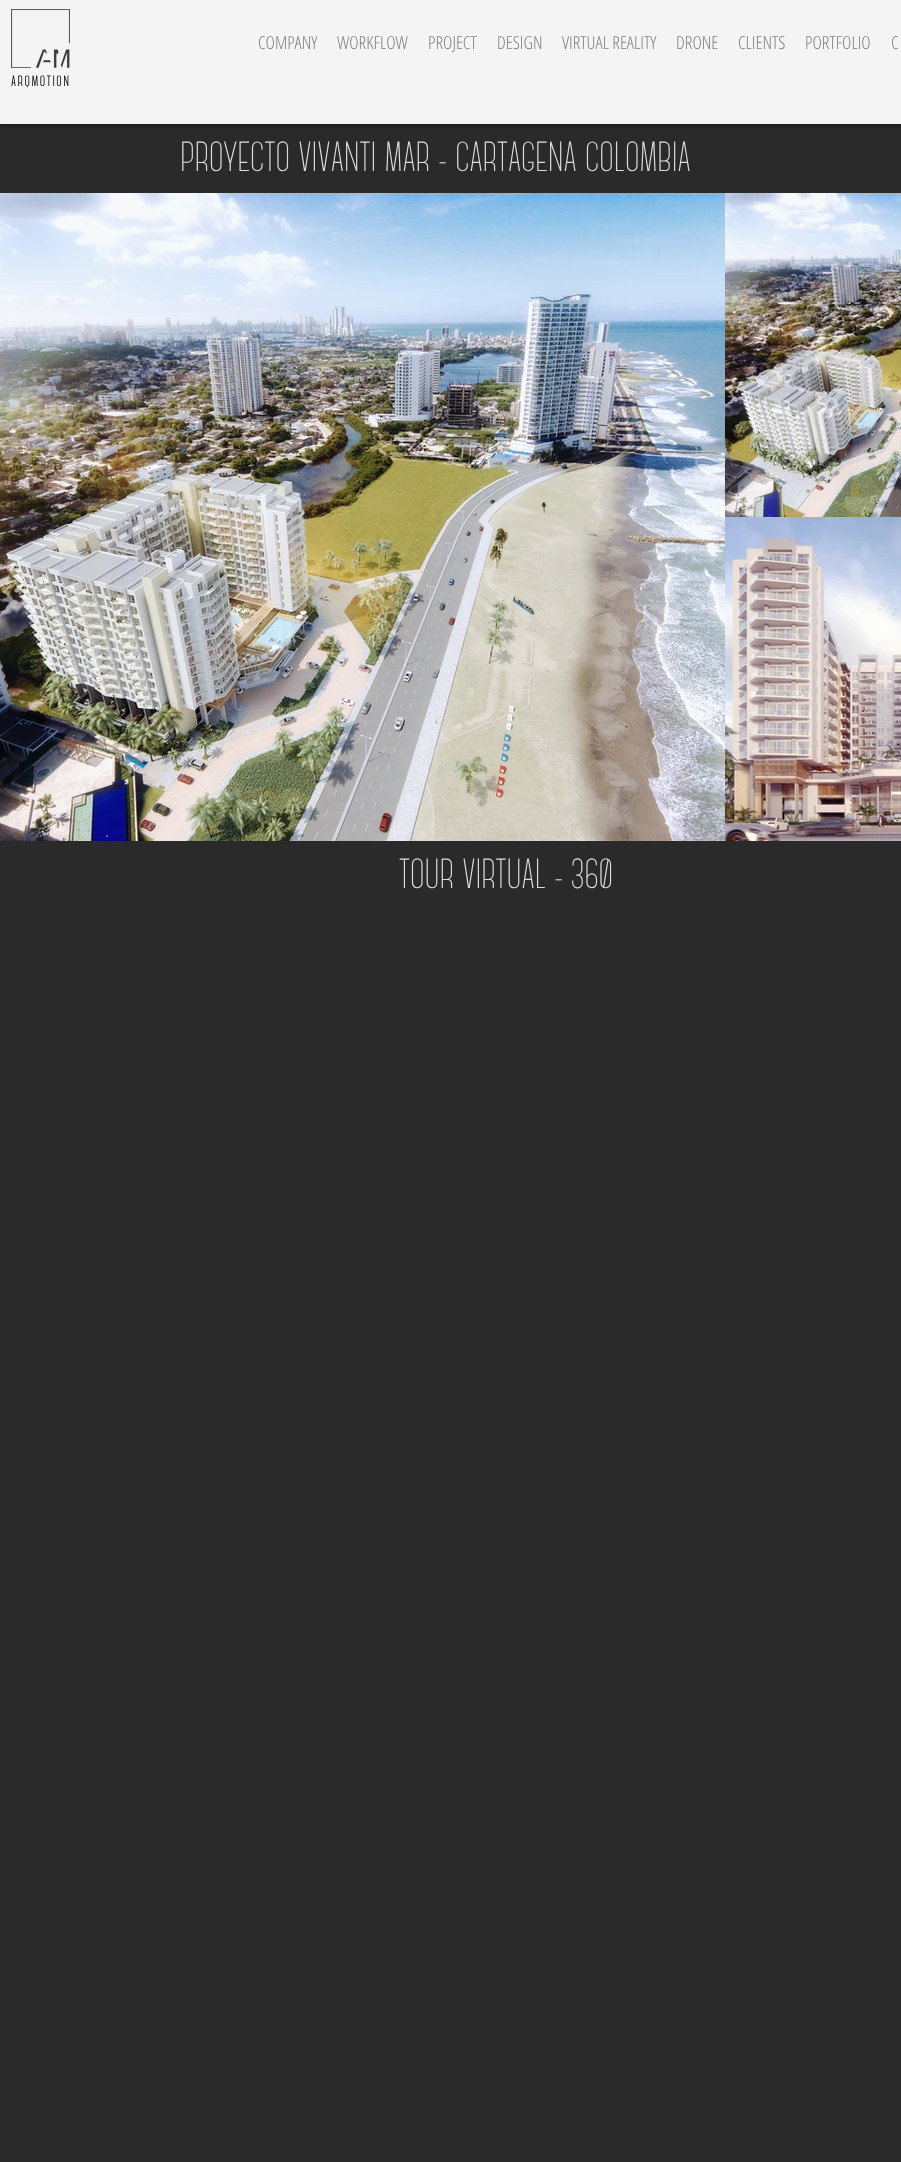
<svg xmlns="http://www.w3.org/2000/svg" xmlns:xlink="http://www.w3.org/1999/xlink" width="901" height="2162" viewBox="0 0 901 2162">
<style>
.cls-1{font:300 18px Open Sans Condensed;fill:#808080}
.cls-2{font:bold 15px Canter;letter-spacing:1.5px;fill:#000000}
.cls-3{font:300 42px Canter;fill:#dddddd}
</style>
<rect width="100%" height="100%" fill="#2a2a2a"/>
<rect fill="#000000" fill-opacity="0.7" filter="blur(2.5px)" x="0" y="0" width="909" height="124"/>
<rect fill="#f4f4f4" x="0" y="0" width="901" height="124"/>
<image xlink:href="image0.png" x="11" y="9" width="59" height="59"/>
<image xlink:href="image1.png" x="0" y="193" width="725" height="648"/>
<image xlink:href="image2.png" x="725" y="193" width="176" height="324"/>
<image xlink:href="image3.png" x="725" y="517" width="176" height="324"/>
<text class="cls-1" x="258" y="49">COMPANY</text>
<text class="cls-1" x="337" y="49">WORKFLOW</text>
<text class="cls-1" x="428" y="49">PROJECT</text>
<text class="cls-1" x="497" y="49">DESIGN</text>
<text class="cls-1" x="562" y="49">VIRTUAL REALITY</text>
<text class="cls-1" x="676" y="49">DRONE</text>
<text class="cls-1" x="738" y="49">CLIENTS</text>
<text class="cls-1" x="805" y="49">PORTFOLIO</text>
<text class="cls-1" x="891" y="49">C</text>
<text class="cls-2" x="11" y="86">ARQMOTION</text>
<text class="cls-3" x="180" y="171">PROYECTO VIVANTI MAR - CARTAGENA COLOMBIA</text>
<text class="cls-3" x="399" y="888">TOUR VIRTUAL - 360</text>
</svg>
